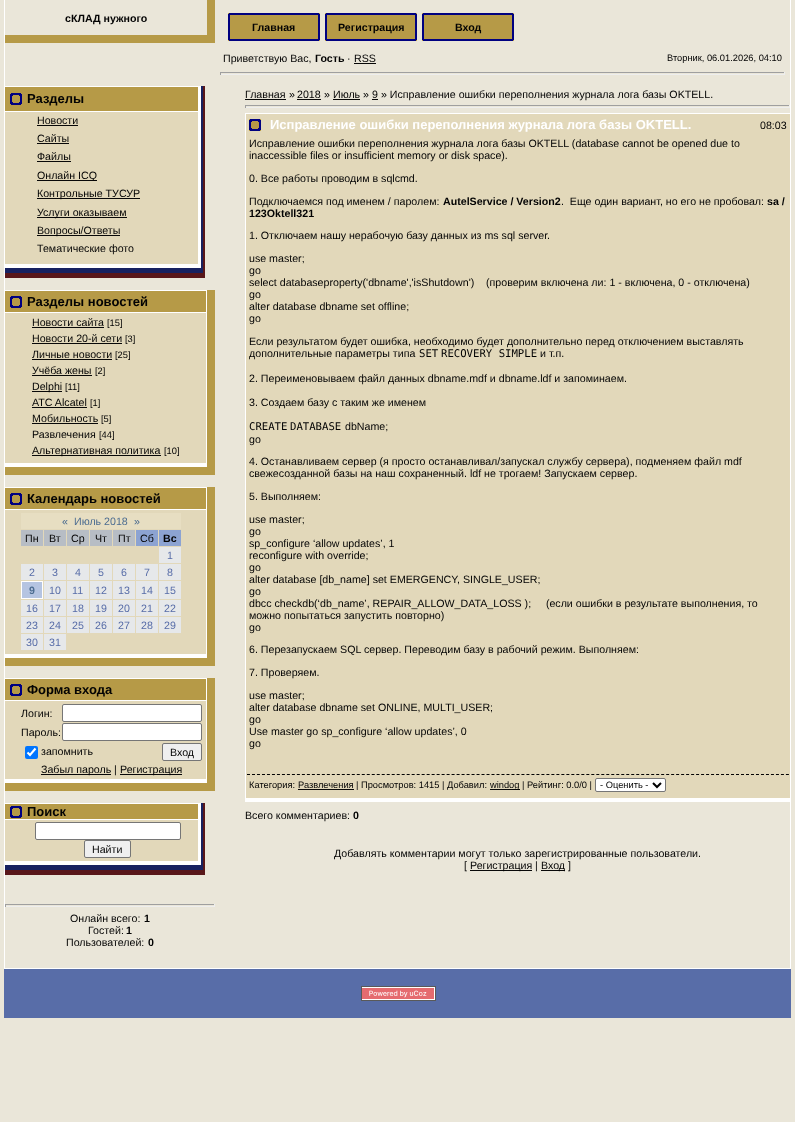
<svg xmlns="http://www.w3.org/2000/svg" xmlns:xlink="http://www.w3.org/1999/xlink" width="795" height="1122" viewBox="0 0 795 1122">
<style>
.cls-1{font:bold 10.65px Liberation Sans;fill:#030303}
.cls-2{font:10.65px Liberation Sans;fill:#030303}
.cls-3{font:9.3px Liberation Sans;fill:#030303}
.cls-4{font:bold 13px Liberation Sans;fill:#030303}
.cls-5{font:10.65px Liberation Sans;fill:#4d6d91}
.cls-6{font:10.65px Liberation Sans;fill:#586da8}
.cls-7{font:bold 10.65px Liberation Sans;fill:#4d6d91}
.cls-8{font:bold 13px Liberation Sans;fill:#ffffff}
.cls-9{font:10.65px DejaVu Sans Mono;fill:#030303}
</style>
<rect width="100%" height="100%" fill="#eae6d9"/>
<rect fill="#ffffff" x="790" y="0" width="1" height="968"/>
<rect fill="#ffffff" x="4" y="0" width="1" height="968"/>
<rect fill="#b69a47" x="207" y="0" width="8" height="35"/>
<rect fill="#b69a47" x="5" y="35" width="210" height="8"/>
<image xlink:href="image0.png" x="228" y="13" width="92" height="28"/>
<image xlink:href="image0.png" x="325" y="13" width="92" height="28"/>
<image xlink:href="image0.png" x="422" y="13" width="92" height="28"/>
<rect fill="#080808" x="354" y="63" width="22" height="1"/>
<rect fill="#9f9f9f" x="220" y="72" width="565" height="1"/>
<rect fill="#eeeeee" x="784" y="72" width="1" height="3"/>
<rect fill="#eeeeee" x="220" y="74" width="565" height="1"/>
<rect fill="#9f9f9f" x="220" y="72" width="1" height="3"/>
<rect fill="#b69a47" x="5" y="87" width="193" height="24"/>
<rect fill="#ffffff" x="5" y="86" width="194" height="1"/>
<rect fill="#ffffff" x="198" y="86" width="3" height="25"/>
<image xlink:href="image1.png" x="10" y="93" width="12" height="12"/>
<rect fill="#172160" x="201" y="86" width="2" height="182"/>
<rect fill="#59171a" x="203" y="86" width="2" height="187"/>
<rect fill="#e2d8ba" x="5" y="112" width="193" height="152"/>
<rect fill="#ffffff" x="5" y="111" width="194" height="1"/>
<rect fill="#ffffff" x="198" y="111" width="3" height="157"/>
<rect fill="#ffffff" x="5" y="264" width="194" height="4"/>
<rect fill="#080808" x="37" y="125" width="41" height="1"/>
<rect fill="#080808" x="37" y="143" width="32" height="1"/>
<rect fill="#080808" x="37" y="161" width="34" height="1"/>
<rect fill="#080808" x="37" y="180" width="60" height="1"/>
<rect fill="#080808" x="37" y="198" width="103" height="1"/>
<rect fill="#080808" x="37" y="217" width="90" height="1"/>
<rect fill="#080808" x="37" y="235" width="83" height="1"/>
<rect fill="#172160" x="5" y="268" width="198" height="5"/>
<rect fill="#59171a" x="5" y="273" width="200" height="5"/>
<rect fill="#b69a47" x="5" y="291" width="201" height="21"/>
<rect fill="#ffffff" x="5" y="290" width="202" height="1"/>
<rect fill="#ffffff" x="206" y="290" width="1" height="22"/>
<image xlink:href="image1.png" x="10" y="296" width="12" height="12"/>
<rect fill="#b69a47" x="207" y="290" width="8" height="177"/>
<rect fill="#e2d8ba" x="5" y="313" width="201" height="150"/>
<rect fill="#ffffff" x="5" y="312" width="202" height="1"/>
<rect fill="#ffffff" x="206" y="312" width="1" height="155"/>
<rect fill="#ffffff" x="5" y="463" width="202" height="4"/>
<rect fill="#080808" x="32" y="327" width="72" height="1"/>
<rect fill="#080808" x="32" y="343" width="90" height="1"/>
<rect fill="#080808" x="32" y="359" width="80" height="1"/>
<rect fill="#080808" x="32" y="375" width="60" height="1"/>
<rect fill="#080808" x="32" y="391" width="30" height="1"/>
<rect fill="#080808" x="32" y="407" width="55" height="1"/>
<rect fill="#080808" x="32" y="423" width="66" height="1"/>
<rect fill="#080808" x="32" y="455" width="129" height="1"/>
<rect fill="#b69a47" x="5" y="467" width="210" height="8"/>
<rect fill="#b69a47" x="5" y="488" width="201" height="21"/>
<rect fill="#ffffff" x="5" y="487" width="202" height="1"/>
<rect fill="#ffffff" x="206" y="487" width="1" height="22"/>
<image xlink:href="image1.png" x="10" y="493" width="12" height="12"/>
<rect fill="#b69a47" x="207" y="487" width="8" height="171"/>
<rect fill="#e2d8ba" x="5" y="510" width="201" height="144"/>
<rect fill="#ffffff" x="5" y="509" width="202" height="1"/>
<rect fill="#ffffff" x="206" y="509" width="1" height="149"/>
<rect fill="#ffffff" x="5" y="654" width="202" height="4"/>
<rect fill="#e7dec2" x="21" y="513" width="160" height="16"/>
<rect fill="#b7bdc5" x="21" y="530" width="22" height="16"/>
<rect fill="#b7bdc5" x="44" y="530" width="22" height="16"/>
<rect fill="#b7bdc5" x="67" y="530" width="22" height="16"/>
<rect fill="#b7bdc5" x="90" y="530" width="22" height="16"/>
<rect fill="#b7bdc5" x="113" y="530" width="22" height="16"/>
<rect fill="#8ca3d2" x="136" y="530" width="22" height="16"/>
<rect fill="#8ca3d2" x="159" y="530" width="22" height="16"/>
<rect fill="#e6e8ea" x="159" y="547" width="22" height="16"/>
<rect fill="#e6e8ea" x="21" y="564" width="22" height="16"/>
<rect fill="#e6e8ea" x="44" y="564" width="22" height="16"/>
<rect fill="#e6e8ea" x="67" y="564" width="22" height="16"/>
<rect fill="#e6e8ea" x="90" y="564" width="22" height="16"/>
<rect fill="#e6e8ea" x="113" y="564" width="22" height="16"/>
<rect fill="#e6e8ea" x="136" y="564" width="22" height="16"/>
<rect fill="#e6e8ea" x="159" y="564" width="22" height="16"/>
<rect fill="#b5c4e1" stroke="#ffffff" x="21.5" y="581.5" width="21" height="17"/>
<rect fill="#e6e8ea" x="44" y="581" width="22" height="18"/>
<rect fill="#e6e8ea" x="67" y="581" width="22" height="18"/>
<rect fill="#e6e8ea" x="90" y="581" width="22" height="18"/>
<rect fill="#e6e8ea" x="113" y="581" width="22" height="18"/>
<rect fill="#e6e8ea" x="136" y="581" width="22" height="18"/>
<rect fill="#e6e8ea" x="159" y="581" width="22" height="18"/>
<rect fill="#e6e8ea" x="21" y="600" width="22" height="16"/>
<rect fill="#e6e8ea" x="44" y="600" width="22" height="16"/>
<rect fill="#e6e8ea" x="67" y="600" width="22" height="16"/>
<rect fill="#e6e8ea" x="90" y="600" width="22" height="16"/>
<rect fill="#e6e8ea" x="113" y="600" width="22" height="16"/>
<rect fill="#e6e8ea" x="136" y="600" width="22" height="16"/>
<rect fill="#e6e8ea" x="159" y="600" width="22" height="16"/>
<rect fill="#e6e8ea" x="21" y="617" width="22" height="16"/>
<rect fill="#e6e8ea" x="44" y="617" width="22" height="16"/>
<rect fill="#e6e8ea" x="67" y="617" width="22" height="16"/>
<rect fill="#e6e8ea" x="90" y="617" width="22" height="16"/>
<rect fill="#e6e8ea" x="113" y="617" width="22" height="16"/>
<rect fill="#e6e8ea" x="136" y="617" width="22" height="16"/>
<rect fill="#e6e8ea" x="159" y="617" width="22" height="16"/>
<rect fill="#e6e8ea" x="21" y="634" width="22" height="16"/>
<rect fill="#e6e8ea" x="44" y="634" width="22" height="16"/>
<rect fill="#b69a47" x="5" y="658" width="210" height="8"/>
<rect fill="#b69a47" x="5" y="679" width="201" height="21"/>
<rect fill="#ffffff" x="5" y="678" width="202" height="1"/>
<rect fill="#ffffff" x="206" y="678" width="1" height="22"/>
<image xlink:href="image1.png" x="10" y="684" width="12" height="12"/>
<rect fill="#b69a47" x="207" y="678" width="8" height="105"/>
<rect fill="#e2d8ba" x="5" y="701" width="201" height="78"/>
<rect fill="#ffffff" x="5" y="700" width="202" height="1"/>
<rect fill="#ffffff" x="206" y="700" width="1" height="83"/>
<rect fill="#ffffff" x="5" y="779" width="202" height="4"/>
<rect fill="#ffffff" stroke="#767676" x="62.5" y="704.5" width="139" height="17" rx="1.5"/>
<rect fill="#ffffff" stroke="#767676" x="62.5" y="723.5" width="139" height="17" rx="1.5"/>
<rect fill="#0075ff" x="25" y="746" width="13" height="13" rx="2"/>
<path fill="none" stroke="#ffffff" stroke-width="2.1" d="M27.5 752.5L30 755L35.5 748.5"/>
<rect fill="#efefef" stroke="#767676" x="162.5" y="743.5" width="39" height="17" rx="1.5"/>
<rect fill="#080808" x="41" y="774" width="70" height="1"/>
<rect fill="#080808" x="120" y="774" width="62" height="1"/>
<rect fill="#b69a47" x="5" y="783" width="210" height="8"/>
<rect fill="#b69a47" x="5" y="804" width="193" height="15"/>
<rect fill="#ffffff" x="5" y="803" width="194" height="1"/>
<rect fill="#ffffff" x="198" y="803" width="3" height="16"/>
<image xlink:href="image1.png" x="10" y="806" width="12" height="12"/>
<rect fill="#172160" x="201" y="803" width="2" height="62"/>
<rect fill="#59171a" x="203" y="803" width="2" height="67"/>
<rect fill="#e2d8ba" x="5" y="820" width="193" height="41"/>
<rect fill="#ffffff" x="5" y="819" width="194" height="1"/>
<rect fill="#ffffff" x="198" y="819" width="3" height="46"/>
<rect fill="#ffffff" x="5" y="861" width="194" height="4"/>
<rect fill="#ffffff" stroke="#767676" x="35.5" y="822.5" width="145" height="17" rx="1.5"/>
<rect fill="#efefef" stroke="#767676" x="84.5" y="840.5" width="46" height="17" rx="1.5"/>
<rect fill="#172160" x="5" y="865" width="198" height="5"/>
<rect fill="#59171a" x="5" y="870" width="200" height="5"/>
<rect fill="#9f9f9f" x="5" y="904" width="210" height="1"/>
<rect fill="#eeeeee" x="214" y="904" width="1" height="3"/>
<rect fill="#eeeeee" x="5" y="906" width="210" height="1"/>
<rect fill="#9f9f9f" x="5" y="904" width="1" height="3"/>
<rect fill="#080808" x="245" y="99" width="41" height="1"/>
<rect fill="#080808" x="297" y="99" width="24" height="1"/>
<rect fill="#080808" x="333" y="99" width="27" height="1"/>
<rect fill="#080808" x="372" y="99" width="6" height="1"/>
<rect fill="#9f9f9f" x="245" y="105" width="545" height="1"/>
<rect fill="#eeeeee" x="789" y="105" width="1" height="3"/>
<rect fill="#eeeeee" x="245" y="107" width="545" height="1"/>
<rect fill="#9f9f9f" x="245" y="105" width="1" height="3"/>
<rect fill="#e2d8ba" x="246" y="114" width="544" height="684"/>
<rect fill="#ffffff" x="245" y="113" width="545" height="1"/>
<rect fill="#ffffff" x="245" y="798" width="545" height="4"/>
<rect fill="#ffffff" x="245" y="113" width="1" height="689"/>
<image xlink:href="image1.png" x="249" y="119" width="12" height="12"/>
<path fill="none" stroke="#030303" stroke-dasharray="3 1.99" d="M247 774.5H789"/>
<rect fill="#080808" x="298" y="789" width="56" height="1"/>
<rect fill="#080808" x="490" y="789" width="30" height="1"/>
<rect fill="#ffffff" stroke="#767676" x="595.5" y="778.5" width="70" height="13" rx="1.5"/>
<path fill="none" stroke="#000000" stroke-width="2" d="M653 783L657 787L661 783"/>
<rect fill="#080808" x="470" y="870" width="62" height="1"/>
<rect fill="#080808" x="541" y="870" width="24" height="1"/>
<rect fill="#586da8" x="4" y="969" width="787" height="49"/>
<rect fill="#ffffff" x="4" y="968" width="787" height="1"/>
<image xlink:href="image2.png" x="361" y="986" width="75" height="15"/>
<text class="cls-1" x="65" y="22">сКЛАД нужного</text>
<text class="cls-1" x="252" y="31">Главная</text>
<text class="cls-1" x="338" y="31">Регистрация</text>
<text class="cls-1" x="455" y="31">Вход</text>
<text class="cls-2" x="223" y="62">Приветствую Вас,</text>
<text class="cls-1" x="315" y="62">Гость</text>
<text class="cls-2" x="347" y="62">·</text>
<text class="cls-2" x="354" y="62">RSS</text>
<text class="cls-3" x="667" y="61">Вторник, 06.01.2026, 04:10</text>
<text class="cls-4" x="27" y="103">Разделы</text>
<text class="cls-2"><tspan x="37" y="124">Новости</tspan><tspan x="37" y="142">Сайты</tspan><tspan x="37" y="160">Файлы</tspan><tspan x="37" y="179">Онлайн ICQ</tspan><tspan x="37" y="197">Контрольные ТУСУР</tspan><tspan x="37" y="216">Услуги оказываем</tspan><tspan x="37" y="234">Вопросы/Ответы</tspan><tspan x="37" y="252">Тематические фото</tspan></text>
<text class="cls-4" x="27" y="306">Разделы новостей</text>
<text class="cls-2" x="32" y="326">Новости сайта</text>
<text class="cls-3" x="107" y="326">[15]</text>
<text class="cls-2" x="32" y="342">Новости 20-й сети</text>
<text class="cls-3" x="125" y="342">[3]</text>
<text class="cls-2" x="32" y="358">Личные новости</text>
<text class="cls-3" x="115" y="358">[25]</text>
<text class="cls-2" x="32" y="374">Учёба жены</text>
<text class="cls-3" x="95" y="374">[2]</text>
<text class="cls-2" x="32" y="390">Delphi</text>
<text class="cls-3" x="65" y="390">[11]</text>
<text class="cls-2" x="32" y="406">ATC Alcatel</text>
<text class="cls-3" x="90" y="406">[1]</text>
<text class="cls-2" x="32" y="422">Мобильность</text>
<text class="cls-3" x="101" y="422">[5]</text>
<text class="cls-2" x="32" y="438">Развлечения</text>
<text class="cls-3" x="99" y="438">[44]</text>
<text class="cls-2" x="32" y="454">Альтернативная политика</text>
<text class="cls-3" x="164" y="454">[10]</text>
<text class="cls-4" x="27" y="503">Календарь новостей</text>
<text class="cls-5" x="62" y="525">«</text>
<text class="cls-5" x="74" y="525">Июль 2018</text>
<text class="cls-5" x="134" y="525">»</text>
<text class="cls-2" x="25" y="542">Пн</text>
<text class="cls-2" x="49" y="542">Вт</text>
<text class="cls-2" x="71" y="542">Ср</text>
<text class="cls-2" x="95" y="542">Чт</text>
<text class="cls-2" x="118" y="542">Пт</text>
<text class="cls-2" x="140" y="542">Сб</text>
<text class="cls-1" x="163" y="542">Вс</text>
<text class="cls-6" x="167" y="559">1</text>
<text class="cls-6" x="29" y="576">2</text>
<text class="cls-6" x="52" y="576">3</text>
<text class="cls-6" x="75" y="576">4</text>
<text class="cls-6" x="98" y="576">5</text>
<text class="cls-6" x="121" y="576">6</text>
<text class="cls-6" x="144" y="576">7</text>
<text class="cls-6" x="167" y="576">8</text>
<text class="cls-7" x="29" y="594">9</text>
<text class="cls-6" x="49" y="594">10</text>
<text class="cls-6" x="72" y="594">11</text>
<text class="cls-6" x="95" y="594">12</text>
<text class="cls-6" x="118" y="594">13</text>
<text class="cls-6" x="141" y="594">14</text>
<text class="cls-6" x="164" y="594">15</text>
<text class="cls-6" x="26" y="612">16</text>
<text class="cls-6" x="49" y="612">17</text>
<text class="cls-6" x="72" y="612">18</text>
<text class="cls-6" x="95" y="612">19</text>
<text class="cls-6" x="118" y="612">20</text>
<text class="cls-6" x="141" y="612">21</text>
<text class="cls-6" x="164" y="612">22</text>
<text class="cls-6" x="26" y="629">23</text>
<text class="cls-6" x="49" y="629">24</text>
<text class="cls-6" x="72" y="629">25</text>
<text class="cls-6" x="95" y="629">26</text>
<text class="cls-6" x="118" y="629">27</text>
<text class="cls-6" x="141" y="629">28</text>
<text class="cls-6" x="164" y="629">29</text>
<text class="cls-6" x="26" y="646">30</text>
<text class="cls-6" x="49" y="646">31</text>
<text class="cls-4" x="27" y="694">Форма входа</text>
<text class="cls-2"><tspan x="21" y="717">Логин:</tspan><tspan x="21" y="736">Пароль:</tspan></text>
<text class="cls-2" x="41" y="755">запомнить</text>
<text class="cls-2" x="170" y="756">Вход</text>
<text class="cls-2" x="41" y="773">Забыл пароль</text>
<text class="cls-2" x="114" y="773">|</text>
<text class="cls-2" x="120" y="773">Регистрация</text>
<text class="cls-4" x="27" y="816">Поиск</text>
<text class="cls-2" x="92" y="853">Найти</text>
<text class="cls-2" x="70" y="922">Онлайн всего:</text>
<text class="cls-1" x="144" y="922">1</text>
<text class="cls-2" x="88" y="934">Гостей:</text>
<text class="cls-1" x="126" y="934">1</text>
<text class="cls-2" x="66" y="946">Пользователей:</text>
<text class="cls-1" x="148" y="946">0</text>
<text class="cls-2" x="245" y="98">Главная</text>
<text class="cls-2" x="289" y="98">»</text>
<text class="cls-2" x="297" y="98">2018</text>
<text class="cls-2" x="324" y="98">»</text>
<text class="cls-2" x="333" y="98">Июль</text>
<text class="cls-2" x="363" y="98">»</text>
<text class="cls-2" x="372" y="98">9</text>
<text class="cls-2" x="381" y="98">» Исправление ошибки переполнения журнала лога базы OKTELL.</text>
<text class="cls-8" x="270" y="129">Исправление ошибки переполнения журнала лога базы OKTELL.</text>
<text class="cls-2" x="760" y="129">08:03</text>
<text class="cls-2"><tspan x="249" y="147">Исправление ошибки переполнения журнала лога базы OKTELL (database cannot be opened due to</tspan><tspan x="249" y="159">inaccessible files or insufficient memory or disk space).</tspan></text>
<text class="cls-2" x="249" y="182">0. Все работы проводим в sqlcmd.</text>
<text class="cls-2" x="249" y="205">Подключаемся под именем / паролем:</text>
<text class="cls-1" x="443" y="205">AutelService / Version2</text>
<text class="cls-2" xml:space="preserve" x="561" y="205">.  Еще один вариант, но его не пробовал:</text>
<text class="cls-1" x="767" y="205">sa /</text>
<text class="cls-1" x="249" y="217">123Oktell321</text>
<text class="cls-2" x="249" y="239">1. Отключаем нашу нерабочую базу данных из ms sql server.</text>
<text class="cls-2" xml:space="preserve"><tspan x="249" y="262">use master;</tspan><tspan x="249" y="274">go</tspan><tspan x="249" y="286">select databaseproperty('dbname','isShutdown')    (проверим включена ли: 1 - включена, 0 - отключена)</tspan><tspan x="249" y="298">go</tspan><tspan x="249" y="310">alter database dbname set offline;</tspan><tspan x="249" y="322">go</tspan></text>
<text class="cls-2"><tspan x="249" y="345">Если результатом будет ошибка, необходимо будет дополнительно перед отключением выставлять</tspan><tspan x="249" y="357">дополнительные параметры типа</tspan></text>
<text class="cls-9" x="419" y="357">SET</text>
<text class="cls-9" x="441" y="357">RECOVERY SIMPLE</text>
<text class="cls-2" x="540" y="357">и т.п.</text>
<text class="cls-2" x="249" y="382">2. Переименовываем файл данных dbname.mdf и dbname.ldf и запоминаем.</text>
<text class="cls-2" x="249" y="406">3. Создаем базу с таким же именем</text>
<text class="cls-9" x="249" y="430">CREATE</text>
<text class="cls-9" x="290" y="430">DATABASE</text>
<text class="cls-2" x="345" y="430">dbName;</text>
<text class="cls-2" x="249" y="443">go</text>
<text class="cls-2"><tspan x="249" y="465">4. Останавливаем сервер (я просто останавливал/запускал службу сервера), подменяем файл mdf</tspan><tspan x="249" y="477">свежесозданной базы на наш сохраненный. ldf не трогаем! Запускаем сервер.</tspan></text>
<text class="cls-2" x="249" y="500">5. Выполняем:</text>
<text class="cls-2" xml:space="preserve"><tspan x="249" y="523">use master;</tspan><tspan x="249" y="535">go</tspan><tspan x="249" y="547">sp_configure ‘allow updates’, 1</tspan><tspan x="249" y="559">reconfigure with override;</tspan><tspan x="249" y="571">go</tspan><tspan x="249" y="583">alter database [db_name] set EMERGENCY, SINGLE_USER;</tspan><tspan x="249" y="595">go</tspan><tspan x="249" y="607">dbcc checkdb(‘db_name’, REPAIR_ALLOW_DATA_LOSS );     (если ошибки в результате выполнения, то</tspan><tspan x="249" y="619">можно попытаться запустить повторно)</tspan><tspan x="249" y="631">go</tspan></text>
<text class="cls-2" x="249" y="653">6. Перезапускаем SQL сервер. Переводим базу в рабочий режим. Выполняем:</text>
<text class="cls-2" x="249" y="676">7. Проверяем.</text>
<text class="cls-2"><tspan x="249" y="699">use master;</tspan><tspan x="249" y="711">alter database dbname set ONLINE, MULTI_USER;</tspan><tspan x="249" y="723">go</tspan><tspan x="249" y="735">Use master go sp_configure ‘allow updates’, 0</tspan><tspan x="249" y="747">go</tspan></text>
<text class="cls-3" x="249" y="788">Категория:</text>
<text class="cls-3" x="298" y="788">Развлечения</text>
<text class="cls-3" x="356" y="788">| Просмотров: 1415 | Добавил:</text>
<text class="cls-3" x="490" y="788">windog</text>
<text class="cls-3" x="522" y="788">| Рейтинг: 0.0/0 |</text>
<text class="cls-3" x="600" y="788">- Оценить -</text>
<text class="cls-2" x="245" y="819">Всего комментариев:</text>
<text class="cls-1" x="353" y="819">0</text>
<text class="cls-2" x="334" y="857">Добавлять комментарии могут только зарегистрированные пользователи.</text>
<text class="cls-2" x="464" y="869">[</text>
<text class="cls-2" x="470" y="869">Регистрация</text>
<text class="cls-2" x="535" y="869">|</text>
<text class="cls-2" x="541" y="869">Вход</text>
<text class="cls-2" x="568" y="869">]</text>
</svg>
